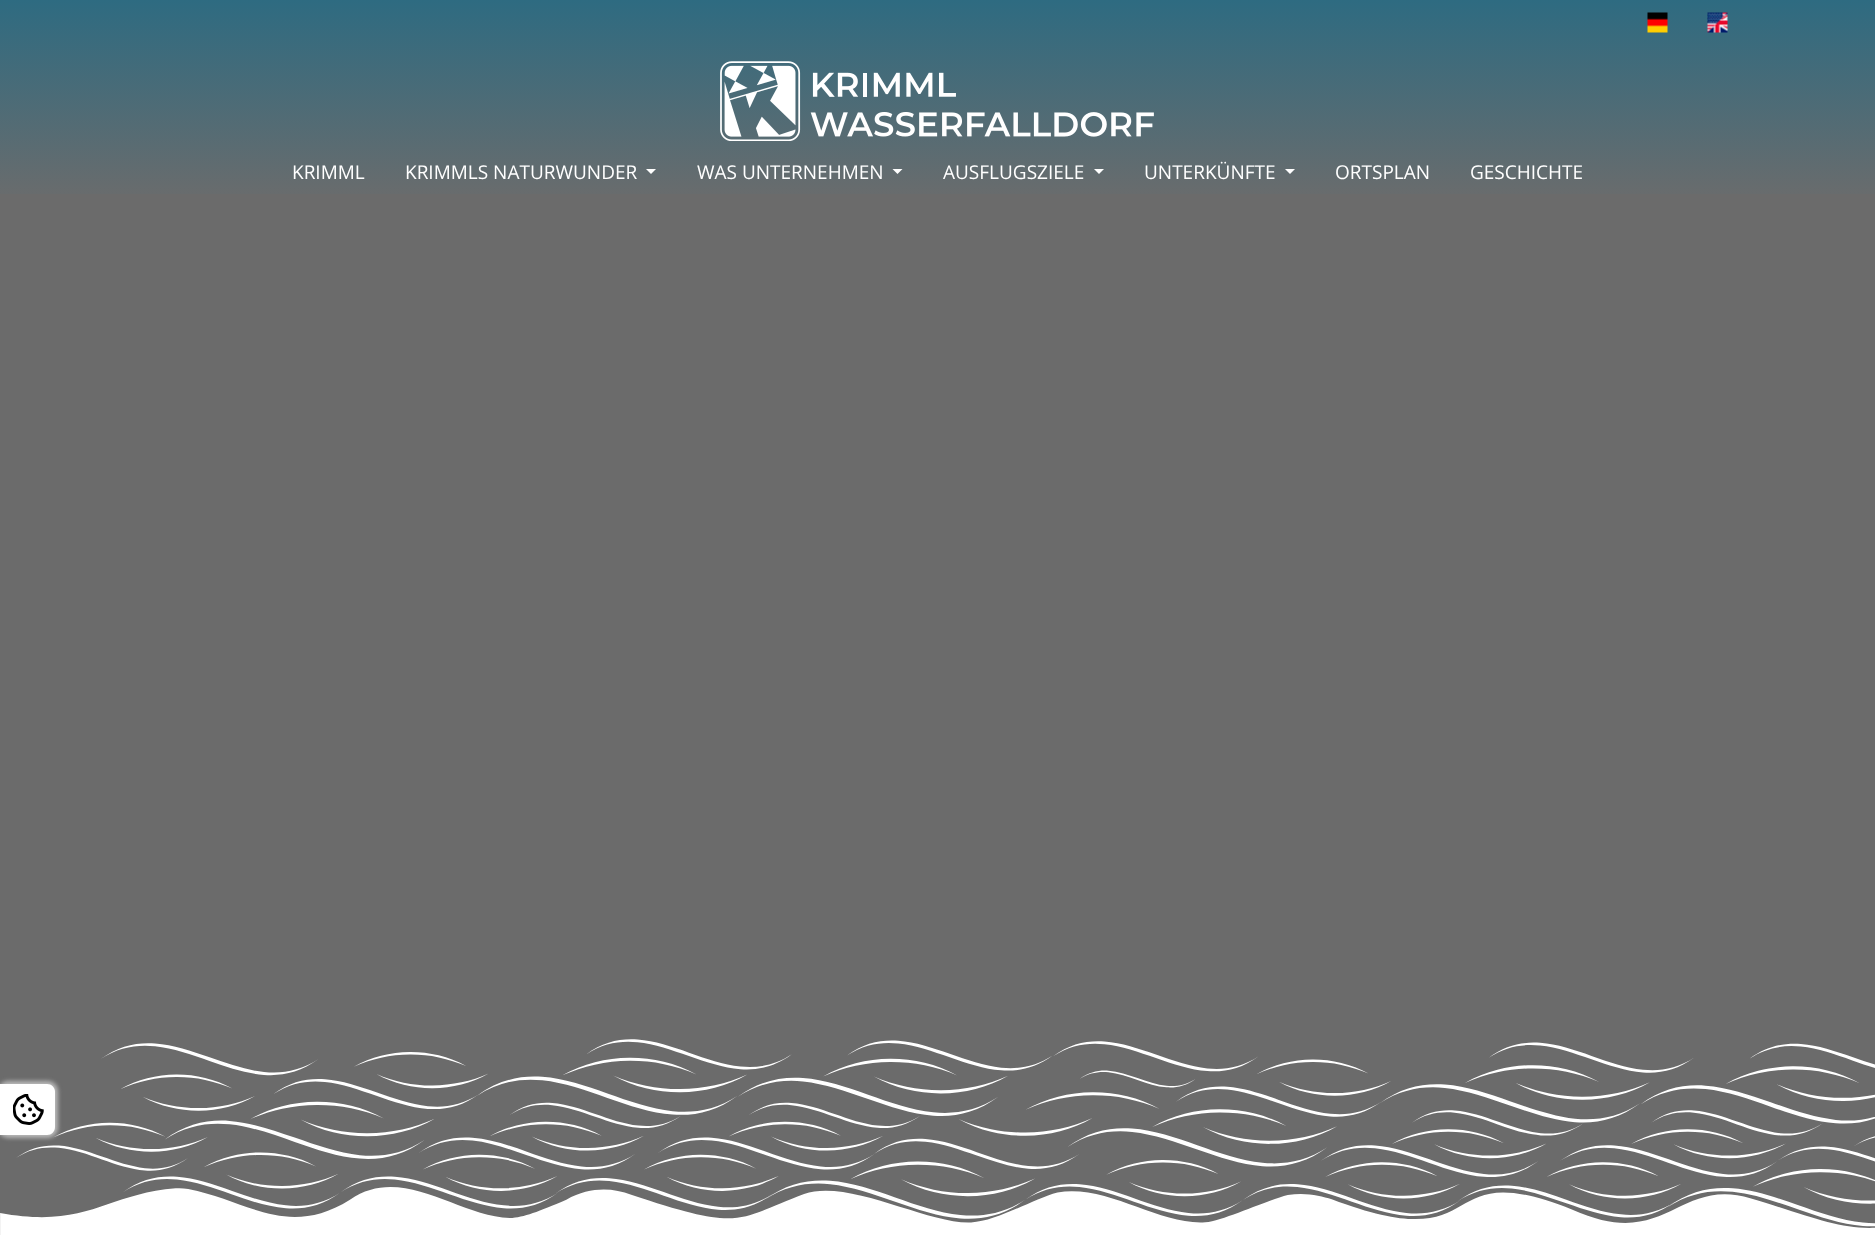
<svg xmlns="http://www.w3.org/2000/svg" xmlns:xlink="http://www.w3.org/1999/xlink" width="1875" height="1235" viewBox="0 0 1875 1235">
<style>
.cls-1{font:19px Open Sans;fill:#ffffff}
</style>
<defs>
<linearGradient id="g1" gradientUnits="userSpaceOnUse" x1="938" y1="206" x2="938" y2="0"><stop offset="0" stop-color="#6c6c6c"/><stop offset="1" stop-color="#2e6b81"/></linearGradient>
</defs>
<rect width="100%" height="100%" fill="#6b6b6b"/>
<rect fill="url(#g1)" x="0" y="0" width="1875" height="194"/>
<image xlink:href="image0.png" x="1647" y="12" width="21" height="21"/>
<image xlink:href="image1.png" x="1707" y="12" width="21" height="21"/>
<image xlink:href="image2.png" x="720" y="61" width="434" height="80"/>
<path fill="#ffffff" d="M646 169H656L651 174Z"/>
<path fill="#ffffff" d="M892.5 169H902.5L897.5 174Z"/>
<path fill="#ffffff" d="M1094 169H1104L1099 174Z"/>
<path fill="#ffffff" d="M1285 169H1295L1290 174Z"/>
<image xlink:href="image3.png" x="0" y="1039" width="1875" height="196"/>
<rect fill="#cccccc" fill-opacity="0.8" filter="blur(2px)" x="-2" y="1081" width="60" height="57" rx="10"/>
<path fill="#ffffff" d="M0 1084H47C51.5 1084 55 1087.5 55 1092V1127C55 1131.5 51.5 1135 47 1135H0Z"/>
<image xlink:href="image4.png" x="13" y="1094" width="31" height="31"/>
<text class="cls-1" x="292" y="179">KRIMML</text>
<text class="cls-1" x="405" y="179">KRIMMLS NATURWUNDER</text>
<text class="cls-1" x="697" y="179">WAS UNTERNEHMEN</text>
<text class="cls-1" x="943" y="179">AUSFLUGSZIELE</text>
<text class="cls-1" x="1144" y="179">UNTERKÜNFTE</text>
<text class="cls-1" x="1335" y="179">ORTSPLAN</text>
<text class="cls-1" x="1470" y="179">GESCHICHTE</text>
</svg>
